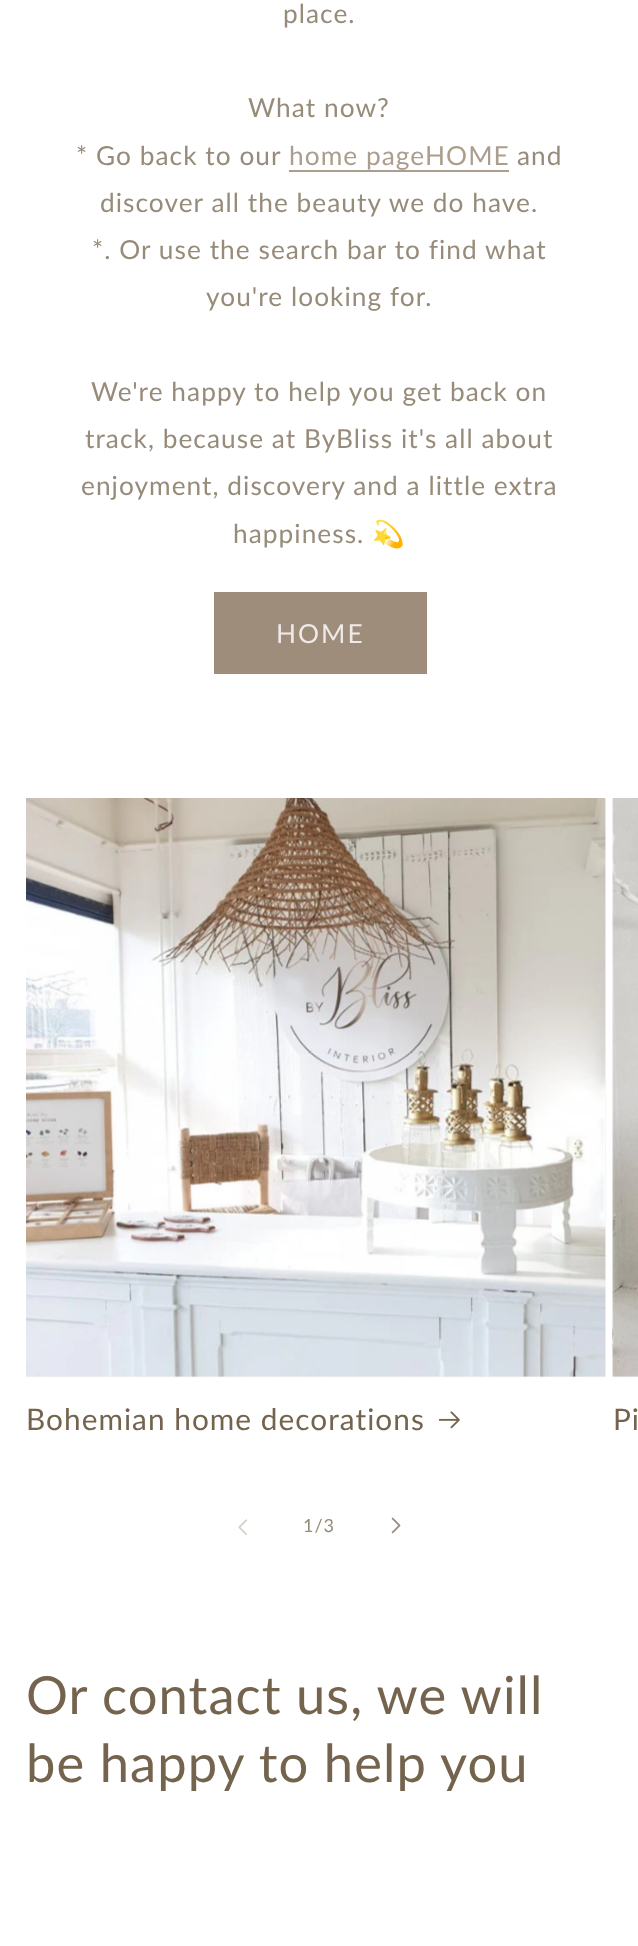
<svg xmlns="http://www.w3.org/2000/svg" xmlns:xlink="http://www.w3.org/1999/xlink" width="638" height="1946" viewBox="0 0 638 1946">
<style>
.cls-1{font:26.25px Lato;letter-spacing:1.05px;fill:#978b7a}
.cls-2{font:26.25px Lato;letter-spacing:1.05px;fill:#ac9e8e}
.cls-3{font:26.25px Noto Color Emoji;letter-spacing:1.05px;fill:#978b7a}
.cls-4{font:26.25px Lato;letter-spacing:2px;fill:#efe9e8}
.cls-5{font:29.75px Lato;letter-spacing:1.05px;fill:#74644e}
.cls-6{font:18px Lato;letter-spacing:1px;fill:#978b7a}
.cls-7{font:52.5px Lato;letter-spacing:1.05px;fill:#74644e}
</style>
<rect width="100%" height="100%" fill="#ffffff"/>
<rect fill="#ac9e8e" x="289" y="170" width="220" height="2"/>
<rect fill="#9d8d7a" x="214" y="592" width="213" height="82"/>
<rect fill="#f3f3f3" x="26" y="798" width="580" height="579"/>
<image xlink:href="image0.png" x="26" y="798" width="580" height="580"/>
<image xlink:href="image1.png" x="439" y="1411" width="21" height="18"/>
<rect fill="#f3f3f3" x="613" y="798" width="25" height="579"/>
<image xlink:href="image2.png" x="612" y="798" width="26" height="580"/>
<image xlink:href="image3.png" x="238" y="1519" width="9" height="16"/>
<image xlink:href="image4.png" x="391" y="1517" width="10" height="17"/>
<text class="cls-1" x="283" y="23">place.</text>
<text class="cls-1" x="248" y="117">What now?</text>
<text class="cls-1" x="76" y="165">* Go back to our</text>
<text class="cls-2" x="289" y="165">home page</text>
<text class="cls-2" x="425" y="165">HOME</text>
<text class="cls-1" x="517" y="165">and</text>
<text class="cls-1" x="100" y="212">discover all the beauty we do have.</text>
<text class="cls-1" x="92" y="259">*. Or use the search bar to find what</text>
<text class="cls-1" x="206" y="306">you're looking for.</text>
<text class="cls-1" x="91" y="401">We're happy to help you get back on</text>
<text class="cls-1" x="85" y="448">track, because at ByBliss it's all about</text>
<text class="cls-1" x="81" y="495">enjoyment, discovery and a little extra</text>
<text class="cls-1" x="233" y="543">happiness.</text>
<text class="cls-3" x="372" y="543">💫</text>
<text class="cls-4" x="276" y="643">HOME</text>
<text class="cls-5" x="26" y="1430">Bohemian home decorations</text>
<text class="cls-5" x="613" y="1430">Pi</text>
<text class="cls-6" x="303" y="1532">1/3</text>
<text class="cls-7"><tspan x="26" y="1714">Or contact us, we will</tspan><tspan x="26" y="1782">be happy to help you</tspan></text>
</svg>
